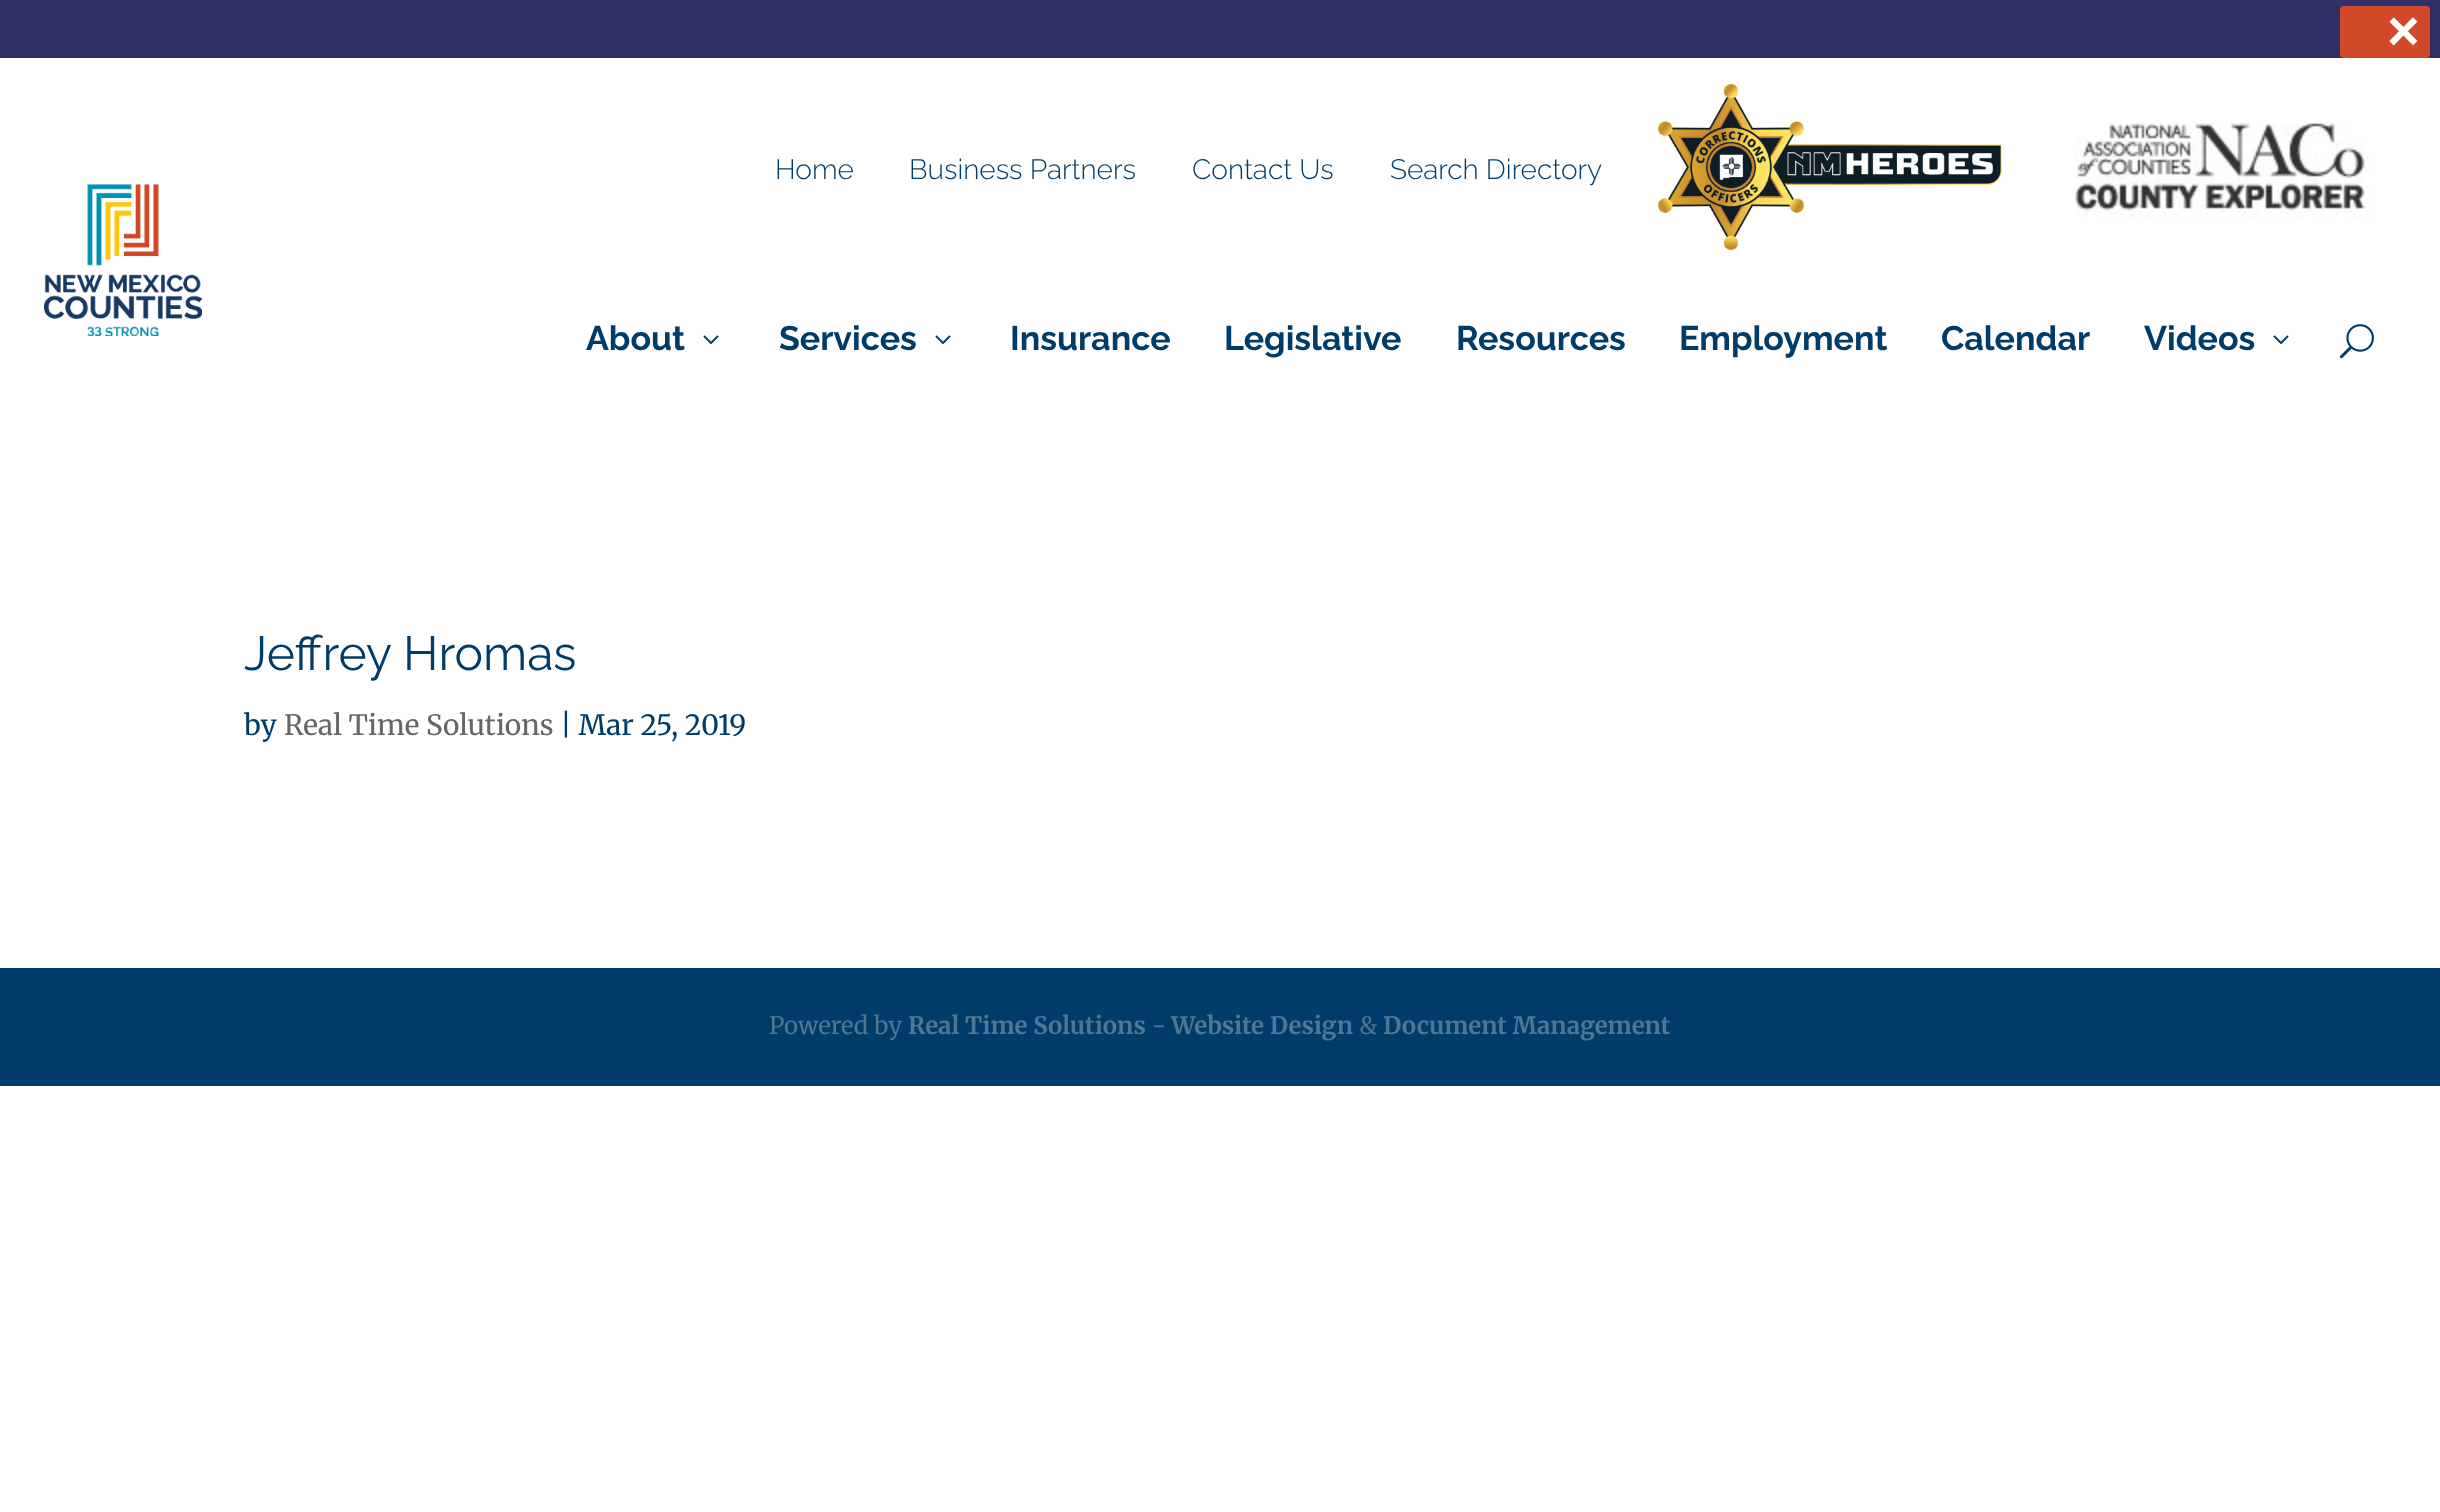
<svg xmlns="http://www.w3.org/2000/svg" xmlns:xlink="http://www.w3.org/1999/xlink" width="2440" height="1512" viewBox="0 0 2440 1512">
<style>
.cls-1{font:bold 56px Liberation Sans;fill:#ffffff}
.cls-2{font:300 28px Raleway;fill:#003c69}
.cls-3{font:bold 34px Raleway;fill:#003c69}
.cls-4{font:48px Raleway;fill:#003c69}
.cls-5{font:28px Merriweather;fill:#003c69}
.cls-6{font:28px Merriweather;fill:#666666}
.cls-7{font:24px Merriweather;fill:#4d7796}
.cls-8{font:bold 24px Merriweather;fill:#4d7796}
</style>
<rect width="100%" height="100%" fill="#ffffff"/>
<rect fill="#303066" x="0" y="0" width="2440" height="58"/>
<rect fill="#d2492a" stroke="#d2492a" stroke-width="2" x="2341" y="7" width="88" height="50" rx="3"/>
<image xlink:href="image0.png" x="1658" y="84" width="344" height="166"/>
<image xlink:href="image1.png" x="2075" y="122" width="300" height="96"/>
<image xlink:href="image2.png" x="44" y="184" width="158" height="152"/>
<image xlink:href="image3.png" x="703" y="335" width="16" height="9"/>
<image xlink:href="image3.png" x="935" y="335" width="16" height="9"/>
<image xlink:href="image3.png" x="2273" y="335" width="16" height="9"/>
<image xlink:href="image4.png" x="2339" y="324" width="35" height="35"/>
<rect fill="#003c69" x="0" y="968" width="2440" height="118"/>
<text class="cls-1" x="2387" y="50">×</text>
<text class="cls-2" x="775" y="179">Home</text>
<text class="cls-2" x="909" y="179">Business Partners</text>
<text class="cls-2" x="1192" y="179">Contact Us</text>
<text class="cls-2" x="1390" y="179">Search Directory</text>
<text class="cls-3" x="586" y="350">About</text>
<text class="cls-3" x="779" y="350">Services</text>
<text class="cls-3" x="1010" y="350">Insurance</text>
<text class="cls-3" x="1224" y="350">Legislative</text>
<text class="cls-3" x="1456" y="350">Resources</text>
<text class="cls-3" x="1679" y="350">Employment</text>
<text class="cls-3" x="1941" y="350">Calendar</text>
<text class="cls-3" x="2144" y="350">Videos</text>
<text class="cls-4" x="244" y="670">Jeffrey Hromas</text>
<text class="cls-5" x="244" y="735">by</text>
<text class="cls-6" x="284" y="735">Real Time Solutions</text>
<text class="cls-5" x="560" y="735">| Mar 25, 2019</text>
<text class="cls-7" x="769" y="1034">Powered by</text>
<text class="cls-8" x="908" y="1034">Real Time Solutions</text>
<text class="cls-7" x="1152" y="1034">-</text>
<text class="cls-8" x="1171" y="1034">Website Design</text>
<text class="cls-7" x="1359" y="1034">&amp;</text>
<text class="cls-8" x="1383" y="1034">Document Management</text>
</svg>
